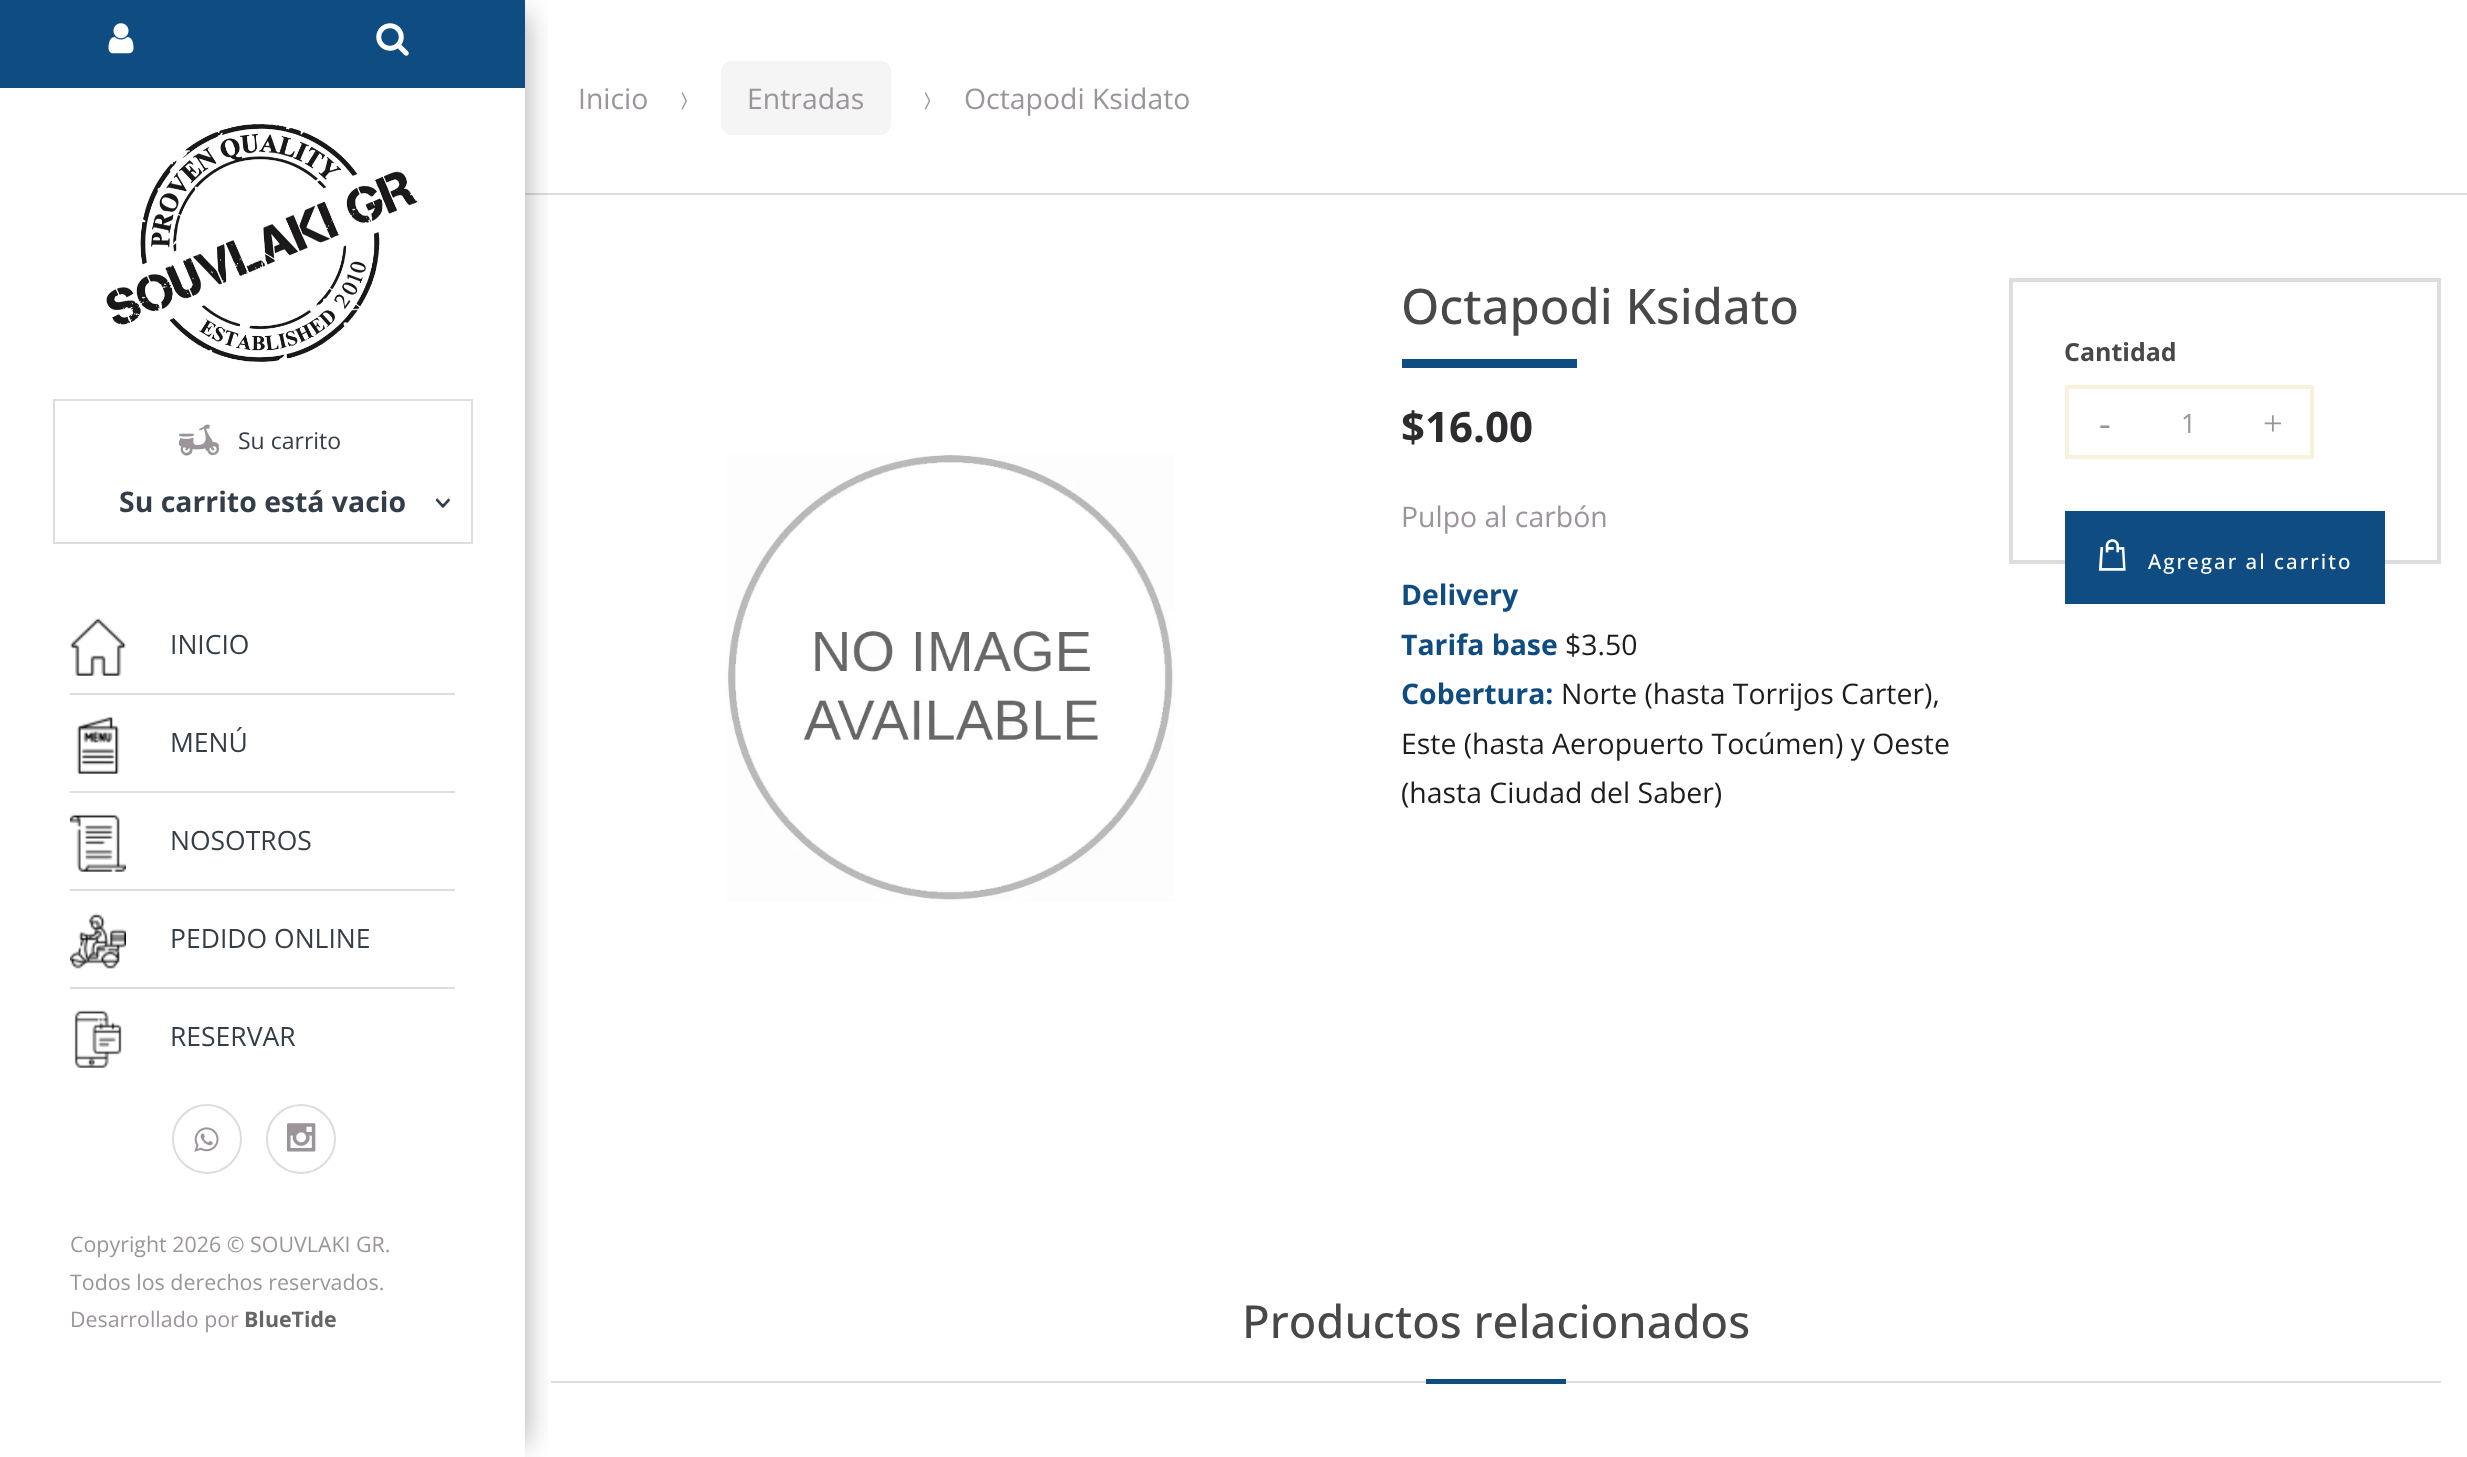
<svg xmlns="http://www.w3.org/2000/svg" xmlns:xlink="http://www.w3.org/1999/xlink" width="2467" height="1457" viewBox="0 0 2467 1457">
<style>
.cls-1{font:23px Open Sans;fill:#333e48}
.cls-2{font:bold 28.4px Open Sans;fill:#333e48}
.cls-3{font:26.5px Open Sans;fill:#333e48}
.cls-4{font:21.4px Open Sans;fill:#9b959b}
.cls-5{font:bold 21.4px Open Sans;fill:#666666}
.cls-6{font:28.4px Open Sans;fill:#9b959b}
.cls-7{font:500 49px Open Sans;fill:#484848}
.cls-8{font:bold 42px Open Sans;fill:#2d2b2d}
.cls-9{font:bold 28.4px Open Sans;fill:#0f4c81}
.cls-10{font:28.4px Open Sans;fill:#1d1d1d}
.cls-11{font:bold 25px Open Sans;fill:#484848}
.cls-12{font:26.5px Open Sans;fill:#9b959b}
.cls-13{font:35px Liberation Serif;fill:#9b959b}
.cls-14{font:500 20.5px Open Sans;letter-spacing:2px;fill:#ffffff}
.cls-15{font:500 45.5px Open Sans;fill:#484848}
</style>
<defs>
<clipPath id="clip1"><rect x="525" y="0" width="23" height="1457"/></clipPath>
</defs>
<rect width="100%" height="100%" fill="#ffffff"/>
<rect fill="#dddddd" x="525" y="193" width="1942" height="2"/>
<rect fill="#dddddd" x="551" y="1381" width="1890" height="2"/>
<g clip-path="url(#clip1)">
<rect fill="#010101" fill-opacity="0.3" filter="blur(14px)" x="30" y="14" width="497" height="1430"/>
</g>
<rect fill="#0f4c81" x="0" y="0" width="525" height="88"/>
<image xlink:href="image0.png" x="108" y="23" width="26" height="31"/>
<image xlink:href="image1.png" x="376" y="23" width="33" height="33"/>
<image xlink:href="image2.png" x="106" y="123" width="313" height="239"/>
<rect fill="none" stroke="#dddddd" stroke-width="2" x="54" y="400" width="418" height="143"/>
<image xlink:href="image3.png" x="178" y="424" width="42" height="32"/>
<image xlink:href="image4.png" x="435" y="498" width="15" height="10"/>
<rect fill="#dddddd" x="70" y="693" width="385" height="2"/>
<image xlink:href="image5.png" x="70" y="618" width="56" height="58"/>
<rect fill="#dddddd" x="70" y="791" width="385" height="2"/>
<image xlink:href="image6.png" x="76" y="716" width="44" height="58"/>
<rect fill="#dddddd" x="70" y="889" width="385" height="2"/>
<image xlink:href="image7.png" x="70" y="814" width="56" height="58"/>
<rect fill="#dddddd" x="70" y="987" width="385" height="2"/>
<image xlink:href="image8.png" x="70" y="913" width="56" height="57"/>
<image xlink:href="image9.png" x="74" y="1010" width="48" height="58"/>
<circle fill="none" stroke="#dddddd" stroke-width="2" cx="207" cy="1139" r="34"/>
<image xlink:href="image10.png" x="194" y="1127" width="25" height="25"/>
<circle fill="none" stroke="#dddddd" stroke-width="2" cx="301" cy="1139" r="34"/>
<image xlink:href="image11.png" x="287" y="1123" width="29" height="29"/>
<image xlink:href="image12.png" x="681" y="92" width="6" height="18"/>
<rect fill="#f5f5f5" x="721" y="61" width="170" height="74" rx="11"/>
<image xlink:href="image13.png" x="924" y="92" width="7" height="18"/>
<image xlink:href="image14.png" x="726" y="454" width="449" height="448"/>
<rect fill="#0f4c81" x="1402" y="359" width="175" height="9"/>
<rect fill="none" stroke="#dddddd" stroke-width="4" x="2011" y="280" width="428" height="282"/>
<rect fill="none" stroke="#f9f1db" stroke-width="4" x="2067" y="387" width="245" height="70"/>
<rect fill="#0f4c81" x="2065" y="511" width="320" height="93"/>
<image xlink:href="image15.png" x="2098" y="539" width="28" height="32"/>
<rect fill="#0f4c81" x="1426" y="1379" width="140" height="5"/>
<text class="cls-1" x="238" y="449">Su carrito</text>
<text class="cls-2" x="119" y="512">Su carrito está vacio</text>
<text class="cls-3" x="170" y="654">INICIO</text>
<text class="cls-3" x="170" y="752">MENÚ</text>
<text class="cls-3" x="170" y="850">NOSOTROS</text>
<text class="cls-3" x="170" y="948">PEDIDO ONLINE</text>
<text class="cls-3" x="170" y="1046">RESERVAR</text>
<text class="cls-4"><tspan x="70" y="1252">Copyright 2026 © SOUVLAKI GR.</tspan><tspan x="70" y="1290">Todos los derechos reservados.</tspan><tspan x="70" y="1327">Desarrollado por</tspan></text>
<text class="cls-5" x="244" y="1327">BlueTide</text>
<text class="cls-6" x="578" y="109">Inicio</text>
<text class="cls-6" x="747" y="109">Entradas</text>
<text class="cls-6" x="964" y="109">Octapodi Ksidato</text>
<text class="cls-7" x="1401" y="324">Octapodi Ksidato</text>
<text class="cls-8" x="1401" y="442">$16.00</text>
<text class="cls-6" x="1401" y="527">Pulpo al carbón</text>
<text class="cls-9"><tspan x="1401" y="605">Delivery</tspan><tspan x="1401" y="655">Tarifa base</tspan></text>
<text class="cls-10" x="1565" y="655">$3.50</text>
<text class="cls-9" x="1401" y="704">Cobertura:</text>
<text class="cls-10" x="1561" y="704">Norte (hasta Torrijos Carter),</text>
<text class="cls-10"><tspan x="1401" y="754">Este (hasta Aeropuerto Tocúmen) y Oeste</tspan><tspan x="1401" y="803">(hasta Ciudad del Saber)</tspan></text>
<text class="cls-11" x="2064" y="361">Cantidad</text>
<text class="cls-12" x="2181" y="433">1</text>
<text class="cls-13" x="2099" y="435">-</text>
<text class="cls-13" x="2263" y="435">+</text>
<text class="cls-14" x="2148" y="569">Agregar al carrito</text>
<text class="cls-15" x="1242" y="1338">Productos relacionados</text>
</svg>
